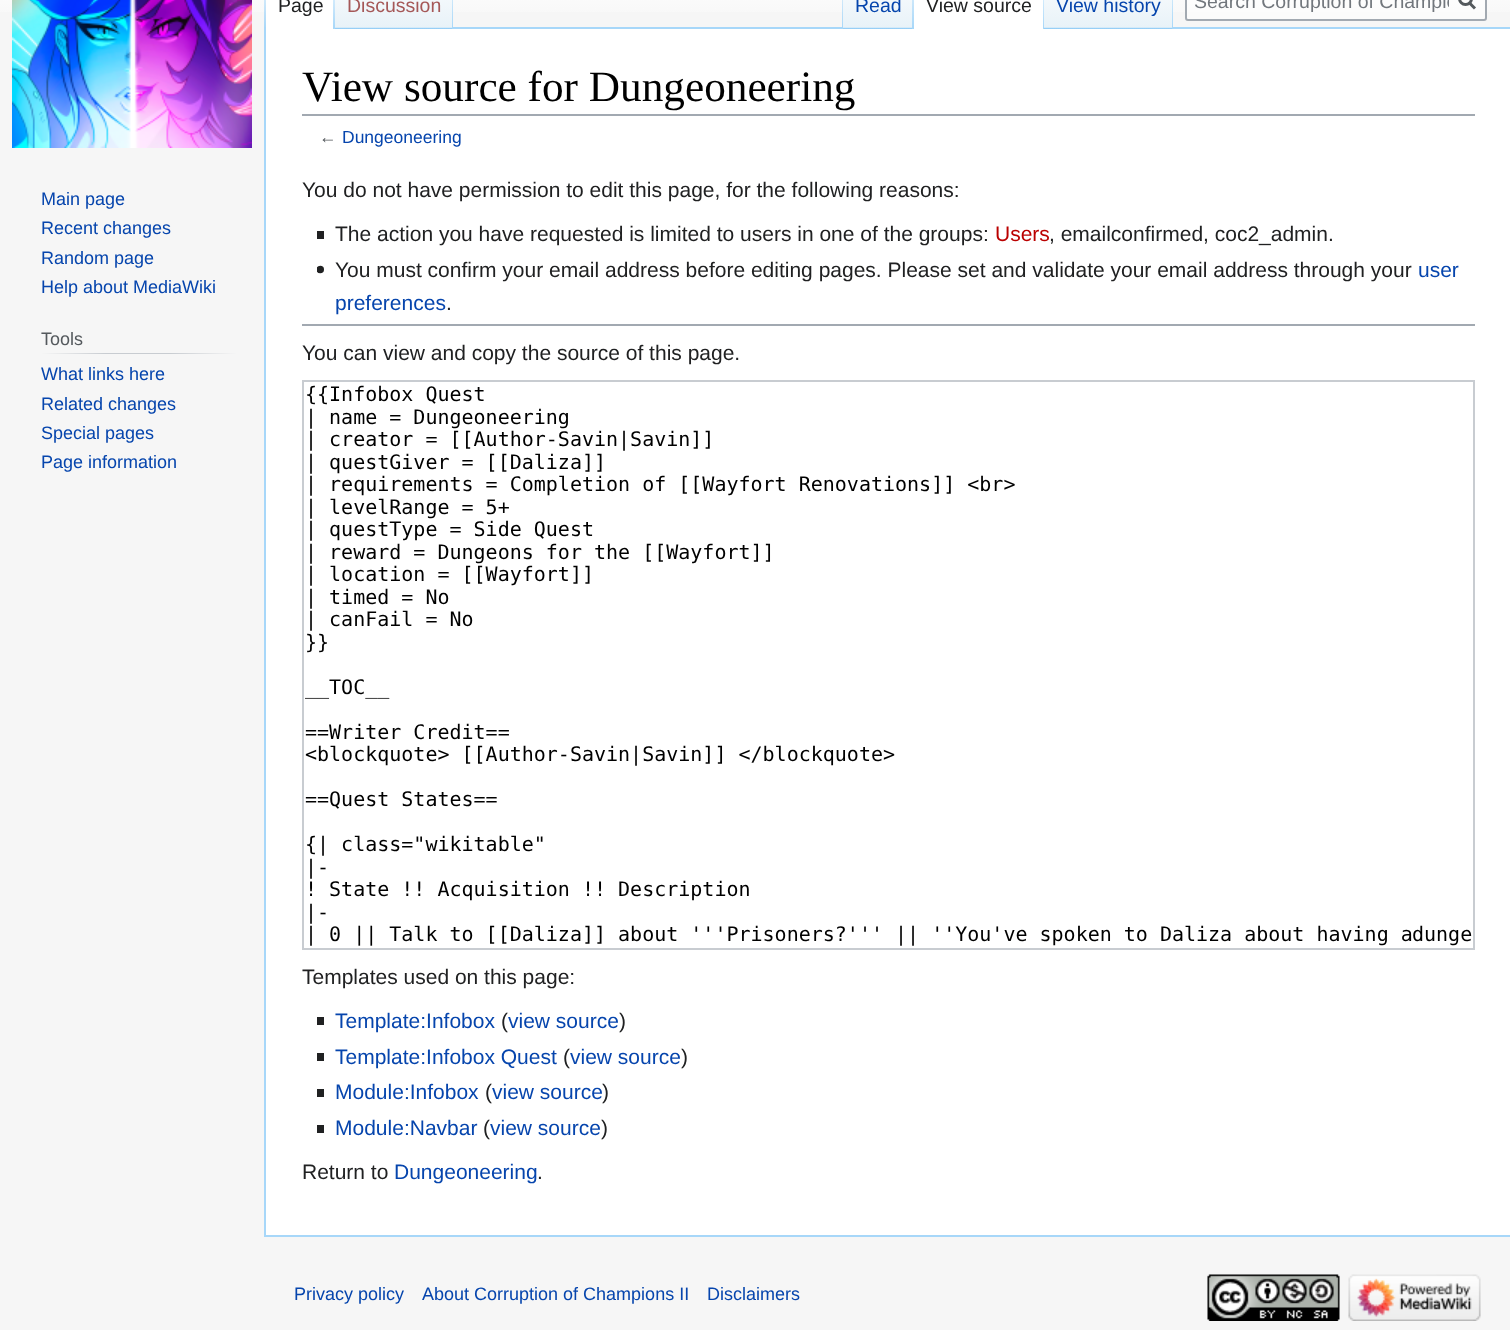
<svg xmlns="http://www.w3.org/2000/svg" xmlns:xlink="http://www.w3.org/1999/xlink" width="1510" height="1330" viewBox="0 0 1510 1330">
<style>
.cls-1{font:19.5px Liberation Sans;fill:#202122}
.cls-2{font:19.5px Liberation Sans;fill:#a55858}
.cls-3{font:19.5px Liberation Sans;fill:#0645ad}
.cls-4{font:19.5px Liberation Sans;fill:#72777d}
.cls-5{font:18px Liberation Sans;fill:#0645ad}
.cls-6{font:18px Liberation Sans;fill:#54595d}
.cls-7{font:43.25px Liberation Serif;fill:#000000}
.cls-8{font:17.5px Liberation Sans;fill:#54595d}
.cls-9{font:17.5px Liberation Sans;fill:#0645ad}
.cls-10{font:21px Liberation Sans;fill:#202122}
.cls-11{font:21px Liberation Sans;fill:#ba0000}
.cls-12{font:21px Liberation Sans;fill:#0645ad}
.cls-13{font:20px DejaVu Sans Mono;fill:#000000}
</style>
<defs>
<linearGradient id="g1" gradientUnits="userSpaceOnUse" x1="755" y1="-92" x2="755" y2="29"><stop offset="0.5" stop-color="#ffffff"/><stop offset="1" stop-color="#f6f6f6"/></linearGradient>
<linearGradient id="g2" gradientUnits="userSpaceOnUse" x1="265" y1="-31" x2="265" y2="29"><stop offset="0" stop-color="#a7d7f9" stop-opacity="0"/><stop offset="1" stop-color="#a7d7f9"/></linearGradient>
<linearGradient id="g3" gradientUnits="userSpaceOnUse" x1="334" y1="-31" x2="334" y2="29"><stop offset="0" stop-color="#ffffff"/><stop offset="1" stop-color="#a7d7f9"/></linearGradient>
<linearGradient id="g4" gradientUnits="userSpaceOnUse" x1="394" y1="29" x2="394" y2="-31"><stop offset="0" stop-color="#77c1f6"/><stop offset="0.03" stop-color="#e8f2f8"/><stop offset="1" stop-color="#ffffff"/></linearGradient>
<linearGradient id="g5" gradientUnits="userSpaceOnUse" x1="452" y1="-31" x2="452" y2="29"><stop offset="0" stop-color="#a7d7f9" stop-opacity="0"/><stop offset="1" stop-color="#a7d7f9"/></linearGradient>
<linearGradient id="g6" gradientUnits="userSpaceOnUse" x1="842" y1="-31" x2="842" y2="29"><stop offset="0" stop-color="#a7d7f9" stop-opacity="0"/><stop offset="1" stop-color="#a7d7f9"/></linearGradient>
<linearGradient id="g7" gradientUnits="userSpaceOnUse" x1="878" y1="29" x2="878" y2="-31"><stop offset="0" stop-color="#77c1f6"/><stop offset="0.03" stop-color="#e8f2f8"/><stop offset="1" stop-color="#ffffff"/></linearGradient>
<linearGradient id="g8" gradientUnits="userSpaceOnUse" x1="913" y1="-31" x2="913" y2="29"><stop offset="0" stop-color="#a7d7f9" stop-opacity="0"/><stop offset="1" stop-color="#a7d7f9"/></linearGradient>
<linearGradient id="g9" gradientUnits="userSpaceOnUse" x1="1043" y1="-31" x2="1043" y2="29"><stop offset="0" stop-color="#ffffff"/><stop offset="1" stop-color="#a7d7f9"/></linearGradient>
<linearGradient id="g10" gradientUnits="userSpaceOnUse" x1="1109" y1="29" x2="1109" y2="-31"><stop offset="0" stop-color="#77c1f6"/><stop offset="0.03" stop-color="#e8f2f8"/><stop offset="1" stop-color="#ffffff"/></linearGradient>
<linearGradient id="g11" gradientUnits="userSpaceOnUse" x1="1172" y1="-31" x2="1172" y2="29"><stop offset="0" stop-color="#a7d7f9" stop-opacity="0"/><stop offset="1" stop-color="#a7d7f9"/></linearGradient>
<linearGradient id="g12" gradientUnits="userSpaceOnUse" x1="41" y1="353" x2="237" y2="353"><stop offset="0" stop-color="#f6f6f6"/><stop offset="0.33" stop-color="#c8ccd1"/><stop offset="0.66" stop-color="#c8ccd1"/><stop offset="1" stop-color="#f6f6f6"/></linearGradient>
<clipPath id="clip1"><rect x="1194" y="0" width="255" height="12"/></clipPath>
</defs>
<rect width="100%" height="100%" fill="#f6f6f6"/>
<rect fill="url(#g1)" x="0" y="0" width="1510" height="12"/>
<rect fill="#a7d7f9" x="264" y="1235" width="1246" height="2"/>
<rect fill="#a7d7f9" x="264" y="27" width="2" height="1209"/>
<rect fill="url(#g2)" x="264" y="0" width="2" height="29"/>
<rect fill="#ffffff" x="266" y="0" width="67" height="29"/>
<rect fill="url(#g3)" x="333" y="0" width="2" height="29"/>
<rect fill="url(#g4)" x="335" y="0" width="118" height="29"/>
<rect fill="url(#g5)" x="452" y="0" width="1" height="29"/>
<rect fill="#a7d7f9" x="453" y="27" width="1057" height="2"/>
<rect fill="url(#g6)" x="842" y="0" width="1" height="29"/>
<rect fill="url(#g7)" x="843" y="0" width="71" height="29"/>
<rect fill="url(#g8)" x="912" y="0" width="2" height="29"/>
<rect fill="#ffffff" x="914" y="0" width="129" height="29"/>
<rect fill="url(#g9)" x="1043" y="0" width="1" height="29"/>
<rect fill="url(#g10)" x="1044" y="0" width="129" height="29"/>
<rect fill="url(#g11)" x="1172" y="0" width="1" height="29"/>
<rect fill="#ffffff" fill-opacity="0.5" stroke="#a2a9b1" stroke-width="2" x="1186" y="-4" width="300" height="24" rx="2"/>
<path fill="none" stroke="#54595d" stroke-width="3" d="M1475 8.5L1469 2.5"/>
<circle fill="none" stroke="#54595d" stroke-width="3" cx="1465.5" cy="-1.5" r="6"/>
<image xlink:href="image0.png" x="12" y="0" width="240" height="148"/>
<rect fill="url(#g12)" x="41" y="353" width="196" height="1"/>
<rect fill="#ffffff" x="266" y="29" width="1244" height="1206"/>
<rect fill="#a2a9b1" x="302" y="114" width="1173" height="2"/>
<rect fill="#202122" x="317" y="231" width="7" height="8"/>
<image xlink:href="image1.png" x="317" y="265" width="7" height="9"/>
<rect fill="#a2a9b1" x="302" y="324" width="1173" height="2"/>
<rect fill="none" stroke="#c8ccd1" stroke-width="2" x="303" y="381" width="1171" height="568"/>
<rect fill="#202122" x="317" y="1017" width="7" height="8"/>
<rect fill="#202122" x="317" y="1053" width="7" height="8"/>
<rect fill="#202122" x="317" y="1089" width="7" height="8"/>
<rect fill="#202122" x="317" y="1125" width="7" height="8"/>
<image xlink:href="image2.png" x="1207" y="1274" width="133" height="47"/>
<image xlink:href="image3.png" x="1348" y="1274" width="133" height="47"/>
<text class="cls-1" x="278" y="12">Page</text>
<text class="cls-2" x="347" y="12">Discussion</text>
<text class="cls-3" x="855" y="12">Read</text>
<text class="cls-1" x="926" y="12">View source</text>
<text class="cls-3" x="1056" y="12">View history</text>
<g clip-path="url(#clip1)">
<text class="cls-4" x="1194" y="8">Search Corruption of Champio</text>
</g>
<text class="cls-5"><tspan x="41" y="205">Main page</tspan><tspan x="41" y="234">Recent changes</tspan><tspan x="41" y="264">Random page</tspan><tspan x="41" y="293">Help about MediaWiki</tspan></text>
<text class="cls-6" x="41" y="345">Tools</text>
<text class="cls-5"><tspan x="41" y="380">What links here</tspan><tspan x="41" y="410">Related changes</tspan><tspan x="41" y="439">Special pages</tspan><tspan x="41" y="468">Page information</tspan></text>
<text class="cls-7" x="302" y="101">View source for Dungeoneering</text>
<text class="cls-8" x="319" y="143">←</text>
<text class="cls-9" x="342" y="143">Dungeoneering</text>
<text class="cls-10" x="302" y="197">You do not have permission to edit this page, for the following reasons:</text>
<text class="cls-10" x="335" y="241">The action you have requested is limited to users in one of the groups:</text>
<text class="cls-11" x="995" y="241">Users</text>
<text class="cls-10" x="1049" y="241">, emailconfirmed, coc2_admin.</text>
<text class="cls-10" x="335" y="277">You must confirm your email address before editing pages. Please set and validate your email address through your</text>
<text class="cls-12" x="1418" y="277">user</text>
<text class="cls-12" x="335" y="310">preferences</text>
<text class="cls-10" x="446" y="310">.</text>
<text class="cls-10" x="302" y="360">You can view and copy the source of this page.</text>
<text class="cls-13"><tspan x="305" y="401">{{Infobox Quest</tspan><tspan x="305" y="424">| name = Dungeoneering</tspan><tspan x="305" y="446">| creator = [[Author-Savin|Savin]]</tspan><tspan x="305" y="469">| questGiver = [[Daliza]]</tspan><tspan x="305" y="491">| requirements = Completion of [[Wayfort Renovations]] &lt;br&gt;</tspan><tspan x="305" y="514">| levelRange = 5+</tspan><tspan x="305" y="536">| questType = Side Quest</tspan><tspan x="305" y="559">| reward = Dungeons for the [[Wayfort]]</tspan><tspan x="305" y="581">| location = [[Wayfort]]</tspan><tspan x="305" y="604">| timed = No</tspan><tspan x="305" y="626">| canFail = No</tspan><tspan x="305" y="649">}}</tspan></text>
<text class="cls-13" x="305" y="694">__TOC__</text>
<text class="cls-13"><tspan x="305" y="739">==Writer Credit==</tspan><tspan x="305" y="761">&lt;blockquote&gt; [[Author-Savin|Savin]] &lt;/blockquote&gt;</tspan></text>
<text class="cls-13" x="305" y="806">==Quest States==</text>
<text class="cls-13"><tspan x="305" y="851">{| class="wikitable"</tspan><tspan x="305" y="874">|-</tspan><tspan x="305" y="896">! State !! Acquisition !! Description</tspan><tspan x="305" y="919">|-</tspan><tspan x="305" y="941">| 0 || Talk to [[Daliza]] about '''Prisoners?''' || ''You've spoken to Daliza about having a</tspan></text>
<text class="cls-13" x="1412" y="941">dunge</text>
<text class="cls-10" x="302" y="984">Templates used on this page:</text>
<text class="cls-12" x="335" y="1028">Template:Infobox</text>
<text class="cls-10" x="501" y="1028">(</text>
<text class="cls-12" x="508" y="1028">view source</text>
<text class="cls-10" x="619" y="1028">)</text>
<text class="cls-12" x="335" y="1064">Template:Infobox Quest</text>
<text class="cls-10" x="563" y="1064">(</text>
<text class="cls-12" x="570" y="1064">view source</text>
<text class="cls-10" x="681" y="1064">)</text>
<text class="cls-12" x="335" y="1099">Module:Infobox</text>
<text class="cls-10" x="485" y="1099">(</text>
<text class="cls-12" x="492" y="1099">view source</text>
<text class="cls-10" x="602" y="1099">)</text>
<text class="cls-12" x="335" y="1135">Module:Navbar</text>
<text class="cls-10" x="483" y="1135">(</text>
<text class="cls-12" x="490" y="1135">view source</text>
<text class="cls-10" x="601" y="1135">)</text>
<text class="cls-10" x="302" y="1179">Return to</text>
<text class="cls-12" x="394" y="1179">Dungeoneering</text>
<text class="cls-10" x="537" y="1179">.</text>
<text class="cls-5" x="294" y="1300">Privacy policy</text>
<text class="cls-5" x="422" y="1300">About Corruption of Champions II</text>
<text class="cls-5" x="707" y="1300">Disclaimers</text>
</svg>
